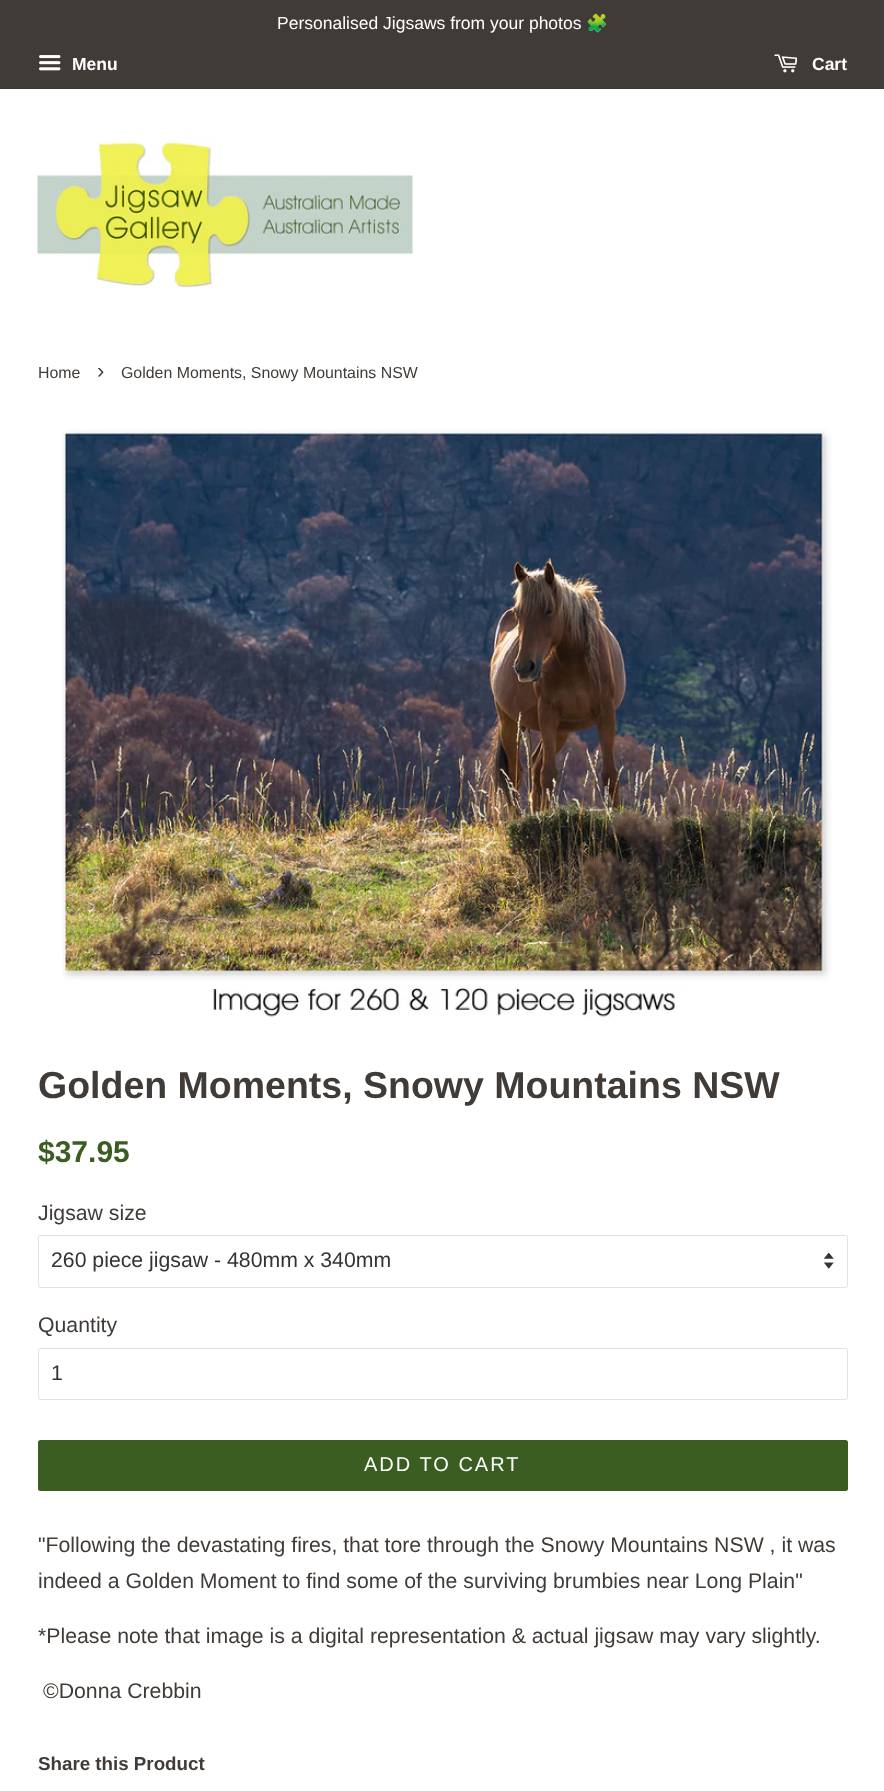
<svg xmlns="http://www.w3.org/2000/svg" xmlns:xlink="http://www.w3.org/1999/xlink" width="884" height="1791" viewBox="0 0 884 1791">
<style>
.cls-1{font:17.5px Liberation Sans;fill:#ffffff}
.cls-2{font:17.5px Noto Color Emoji;fill:#ffffff}
.cls-3{font:bold 17.5px Liberation Sans;fill:#ffffff}
.cls-4{font:15.9px Liberation Sans;fill:#403b37}
.cls-5{font:22px Liberation Sans;fill:#403b37}
.cls-6{font:bold 37.5px Liberation Sans;fill:#403b37}
.cls-7{font:bold 30px Liberation Sans;fill:#3c5d21}
.cls-8{font:21.25px Liberation Sans;fill:#403b37}
.cls-9{font:21.25px Liberation Sans;fill:#333333}
.cls-10{font:20px Liberation Sans;letter-spacing:2px;fill:#ffffff}
.cls-11{font:bold 18.75px Liberation Sans;fill:#403b37}
</style>
<rect width="100%" height="100%" fill="#ffffff"/>
<rect fill="#403b37" x="0" y="0" width="884" height="89"/>
<image xlink:href="image0.png" x="39" y="55" width="22" height="16"/>
<image xlink:href="image1.png" x="774" y="54" width="24" height="19"/>
<image xlink:href="image2.png" x="37" y="139" width="376" height="150"/>
<image xlink:href="image3.png" x="62" y="429" width="770" height="589"/>
<image xlink:href="image4.png" x="824" y="1253" width="10" height="16"/>
<rect fill="none" stroke="#e2e2e1" x="38.5" y="1235.5" width="809" height="52" rx="2"/>
<rect fill="none" stroke="#e2e2e1" x="38.5" y="1348.5" width="809" height="51" rx="2"/>
<rect fill="#3c5d21" x="38" y="1440" width="810" height="51" rx="2.5"/>
<text class="cls-1" x="277" y="29">Personalised Jigsaws from your photos</text>
<text class="cls-2" x="586" y="29">🧩</text>
<text class="cls-3" x="72" y="70">Menu</text>
<text class="cls-3" x="812" y="70">Cart</text>
<text class="cls-4" x="38" y="378">Home</text>
<text class="cls-5" x="97" y="378">›</text>
<text class="cls-4" x="121" y="378">Golden Moments, Snowy Mountains NSW</text>
<text class="cls-6" x="38" y="1098">Golden Moments, Snowy Mountains NSW</text>
<text class="cls-7" x="38" y="1162">$37.95</text>
<text class="cls-8" x="38" y="1220">Jigsaw size</text>
<text class="cls-9" x="51" y="1267">260 piece jigsaw - 480mm x 340mm</text>
<text class="cls-8" x="38" y="1332">Quantity</text>
<text class="cls-9" x="51" y="1380">1</text>
<text class="cls-10" x="364" y="1471">ADD TO CART</text>
<text class="cls-8"><tspan x="38" y="1552">"Following the devastating fires, that tore through the Snowy Mountains NSW , it was</tspan><tspan x="38" y="1588">indeed a Golden Moment to find some of the surviving brumbies near Long Plain"</tspan></text>
<text class="cls-8" x="38" y="1643">*Please note that image is a digital representation &amp; actual jigsaw may vary slightly.</text>
<text class="cls-8" x="43" y="1698">©Donna Crebbin</text>
<text class="cls-11" x="38" y="1770">Share this Product</text>
</svg>
